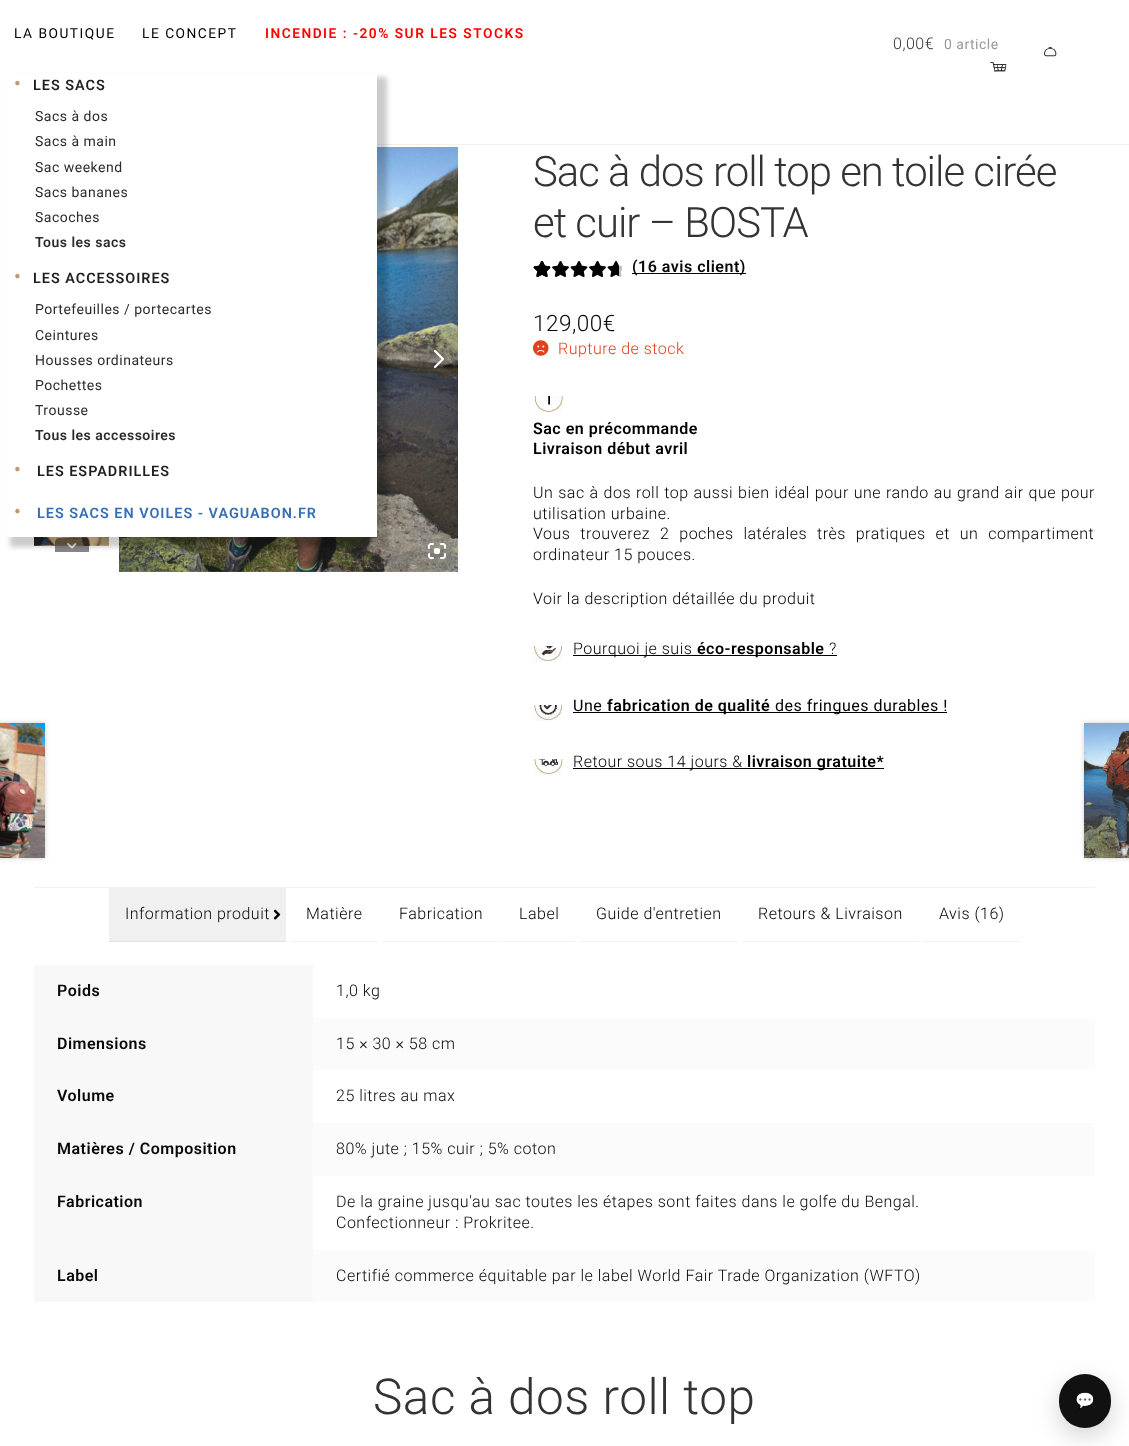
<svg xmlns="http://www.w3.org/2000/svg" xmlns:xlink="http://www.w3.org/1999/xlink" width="1129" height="1446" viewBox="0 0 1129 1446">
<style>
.cls-1{font:13.75px Roboto;letter-spacing:1.5px;fill:#000000}
.cls-2{font:600 19px Roboto;letter-spacing:1px;fill:#c0996f}
.cls-3{font:600 14.4px Roboto;letter-spacing:1px;fill:#1f1f1f}
.cls-4{font:14px Roboto;letter-spacing:0.5px;fill:#2b2b2b}
.cls-5{font:600 14px Roboto;letter-spacing:0.5px;fill:#2b2b2b}
.cls-6{font:600 14.4px Roboto;letter-spacing:1px;fill:#356eb4}
.cls-7{font:600 13.75px Roboto;letter-spacing:1.5px;fill:#ff0000}
.cls-8{font:300 16px Roboto;letter-spacing:0.5px;fill:#333333}
.cls-9{font:14px Roboto;letter-spacing:0.5px;fill:#999999}
.cls-10{font:300 41.9px Roboto;letter-spacing:-1px;fill:#333333}
.cls-11{font:600 16px Roboto;letter-spacing:0.5px;fill:#070707}
.cls-12{font:300 22.5px Roboto;letter-spacing:0.5px;fill:#070707}
.cls-13{font:300 16px Roboto;letter-spacing:0.5px;fill:#e2401c}
.cls-14{font:600 16px Roboto;letter-spacing:0.5px;fill:#000000}
.cls-15{font:300 16px Roboto;letter-spacing:0.5px;fill:#000000}
.cls-16{font:16px Roboto;letter-spacing:0.5px;fill:#000000}
.cls-17{font:300 16px Roboto;letter-spacing:0.5px;fill:#070707}
.cls-18{font:300 49.5px Roboto;letter-spacing:0.5px;fill:#333333}
.cls-19{font:bold 16px Noto Color Emoji;fill:#ffffff}
</style>
<rect width="100%" height="100%" fill="#ffffff"/>
<rect fill="#f0f0f0" x="377" y="144" width="752" height="1"/>
<image xlink:href="image3.png" x="119" y="147" width="339" height="425"/>
<rect fill="#000000" fill-opacity="0.2" filter="blur(2.5px)" x="10" y="77" width="377" height="193"/>
<rect fill="#ffffff" x="6" y="73" width="371" height="187"/>
<rect fill="#000000" fill-opacity="0.2" filter="blur(2.5px)" x="10" y="270" width="377" height="193"/>
<rect fill="#ffffff" x="6" y="260" width="371" height="193"/>
<rect fill="#000000" fill-opacity="0.2" filter="blur(2.5px)" x="10" y="463" width="377" height="42"/>
<rect fill="#ffffff" x="6" y="453" width="371" height="42"/>
<image xlink:href="image2.png" x="34" y="537" width="75" height="9"/>
<path fill="#111111" fill-opacity="0.5" d="M59 538H85C87 538 89 540 89 542V552H55V542C55 540 57 538 59 538Z"/>
<path fill="none" stroke="#ffffff" stroke-opacity="0.8" stroke-width="1.9" stroke-linecap="round" stroke-linejoin="round" d="M68 544L72 547.5L75.5 544"/>
<rect fill="#000000" fill-opacity="0.2" filter="blur(2.5px)" x="10" y="505" width="377" height="42"/>
<rect fill="#ffffff" x="6" y="495" width="371" height="42"/>
<image xlink:href="image0.png" x="990" y="62" width="17" height="10"/>
<image xlink:href="image1.png" x="1044" y="47" width="13" height="10"/>
<path fill="none" stroke="#ffffff" stroke-width="2.2" stroke-linecap="round" stroke-linejoin="round" d="M435 351L443 359L435 367"/>
<image xlink:href="image4.png" x="428" y="543" width="18" height="16"/>
<image xlink:href="image5.png" x="533" y="261" width="89" height="16"/>
<image xlink:href="image6.png" x="533" y="261" width="86" height="16"/>
<image xlink:href="image7.png" x="533" y="261" width="17" height="16"/>
<rect fill="#070707" x="632" y="273" width="114" height="1"/>
<image xlink:href="image8.png" x="533" y="340" width="16" height="16"/>
<image xlink:href="image9.png" x="533" y="396" width="30" height="17"/>
<image xlink:href="image10.png" x="533" y="646" width="30" height="16"/>
<rect fill="#000000" x="573" y="655" width="264" height="1"/>
<image xlink:href="image11.png" x="533" y="705" width="30" height="16"/>
<rect fill="#000000" x="573" y="712" width="374" height="1"/>
<image xlink:href="image12.png" x="533" y="759" width="30" height="16"/>
<rect fill="#000000" x="573" y="768" width="311" height="1"/>
<rect fill="#000000" fill-opacity="0.2" filter="blur(2.5px)" x="-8" y="723" width="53" height="135"/>
<image xlink:href="image13.png" x="0" y="723" width="45" height="135"/>
<rect fill="#000000" fill-opacity="0.2" filter="blur(2.5px)" x="1084" y="723" width="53" height="135"/>
<image xlink:href="image14.png" x="1084" y="723" width="45" height="135"/>
<rect fill="#f2f2f2" x="34" y="887" width="1061" height="1"/>
<rect fill="#f0f0f0" x="109" y="888" width="177" height="53"/>
<rect fill="#e4e4e4" x="109" y="941" width="177" height="1"/>
<image xlink:href="image15.png" x="273" y="909" width="8" height="11"/>
<rect fill="#f2f2f2" x="290" y="941" width="88" height="1"/>
<rect fill="#f2f2f2" x="383" y="941" width="116" height="1"/>
<rect fill="#f2f2f2" x="503" y="941" width="72" height="1"/>
<rect fill="#f2f2f2" x="580" y="941" width="157" height="1"/>
<rect fill="#f2f2f2" x="742" y="941" width="177" height="1"/>
<rect fill="#f2f2f2" x="923" y="941" width="97" height="1"/>
<rect fill="#f8f8f8" x="34" y="965" width="279" height="337"/>
<rect fill="#fbfbfb" x="313" y="1018" width="782" height="52"/>
<rect fill="#fbfbfb" x="313" y="1123" width="782" height="53"/>
<rect fill="#fbfbfb" x="313" y="1250" width="782" height="52"/>
<rect fill="#000000" fill-opacity="0.18" filter="blur(12px)" x="1059" y="1382" width="52" height="54" rx="26"/>
<rect fill="#111111" x="1059" y="1374" width="52" height="54" rx="26"/>
<text class="cls-1" x="14" y="38">LA BOUTIQUE</text>
<text class="cls-2" x="14" y="90">•</text>
<text class="cls-3" x="33" y="90">LES SACS</text>
<text class="cls-4"><tspan x="35" y="121">Sacs à dos</tspan><tspan x="35" y="146">Sacs à main</tspan><tspan x="35" y="172">Sac weekend</tspan><tspan x="35" y="197">Sacs bananes</tspan><tspan x="35" y="222">Sacoches</tspan></text>
<text class="cls-5" x="35" y="247">Tous les sacs</text>
<text class="cls-2" x="14" y="283">•</text>
<text class="cls-3" x="33" y="283">LES ACCESSOIRES</text>
<text class="cls-4"><tspan x="35" y="314">Portefeuilles / portecartes</tspan><tspan x="35" y="340">Ceintures</tspan><tspan x="35" y="365">Housses ordinateurs</tspan><tspan x="35" y="390">Pochettes</tspan><tspan x="35" y="415">Trousse</tspan></text>
<text class="cls-5" x="35" y="440">Tous les accessoires</text>
<text class="cls-2" x="14" y="476">•</text>
<text class="cls-3" x="37" y="476">LES ESPADRILLES</text>
<text class="cls-2" x="14" y="518">•</text>
<text class="cls-6" x="37" y="518">LES SACS EN VOILES - VAGUABON.FR</text>
<text class="cls-1" x="142" y="38">LE CONCEPT</text>
<text class="cls-7" x="265" y="38">INCENDIE : -20% SUR LES STOCKS</text>
<text class="cls-8" x="893" y="49">0,00€</text>
<text class="cls-9" x="944" y="49">0 article</text>
<text class="cls-10"><tspan x="533" y="186">Sac à dos roll top en toile cirée</tspan><tspan x="533" y="237">et cuir – BOSTA</tspan></text>
<text class="cls-11" x="632" y="272">(16 avis client)</text>
<text class="cls-12" x="533" y="331">129,00€</text>
<text class="cls-13" x="558" y="354">Rupture de stock</text>
<text class="cls-14"><tspan x="533" y="434">Sac en précommande</tspan><tspan x="533" y="454">Livraison début avril</tspan></text>
<text class="cls-15"><tspan x="533" y="498" word-spacing="0.5">Un sac à dos roll top aussi bien idéal pour une rando au grand air que pour</tspan><tspan x="533" y="519">utilisation urbaine.</tspan><tspan x="533" y="539" word-spacing="5.5">Vous trouverez 2 poches latérales très pratiques et un compartiment</tspan><tspan x="533" y="560">ordinateur 15 pouces.</tspan></text>
<text class="cls-15" x="533" y="604">Voir la description détaillée du produit</text>
<text class="cls-15" x="573" y="654">Pourquoi je suis</text>
<text class="cls-14" x="697" y="654">éco-responsable</text>
<text class="cls-15" x="829" y="654">?</text>
<text class="cls-16" x="573" y="711">Une</text>
<text class="cls-14" x="607" y="711">fabrication de qualité</text>
<text class="cls-16" x="775" y="711">des fringues durables !</text>
<text class="cls-15" x="573" y="767">Retour sous 14 jours &amp;</text>
<text class="cls-14" x="747" y="767">livraison gratuite*</text>
<text class="cls-17" x="125" y="919">Information produit</text>
<text class="cls-15" x="306" y="919">Matière</text>
<text class="cls-15" x="399" y="919">Fabrication</text>
<text class="cls-15" x="519" y="919">Label</text>
<text class="cls-15" x="596" y="919">Guide d'entretien</text>
<text class="cls-15" x="758" y="919">Retours &amp; Livraison</text>
<text class="cls-15" x="939" y="919">Avis (16)</text>
<text class="cls-11" x="57" y="996">Poids</text>
<text class="cls-17" x="336" y="996">1,0 kg</text>
<text class="cls-11" x="57" y="1049">Dimensions</text>
<text class="cls-17" x="336" y="1049">15 × 30 × 58 cm</text>
<text class="cls-11" x="57" y="1101">Volume</text>
<text class="cls-17" x="336" y="1101">25 litres au max</text>
<text class="cls-11" x="57" y="1154">Matières / Composition</text>
<text class="cls-17" x="336" y="1154">80% jute ; 15% cuir ; 5% coton</text>
<text class="cls-11" x="57" y="1207">Fabrication</text>
<text class="cls-17"><tspan x="336" y="1207">De la graine jusqu'au sac toutes les étapes sont faites dans le golfe du Bengal.</tspan><tspan x="336" y="1228">Confectionneur : Prokritee.</tspan></text>
<text class="cls-11" x="57" y="1281">Label</text>
<text class="cls-17" x="336" y="1281">Certifié commerce équitable par le label World Fair Trade Organization (WFTO)</text>
<text class="cls-18" x="373" y="1414">Sac à dos roll top</text>
<text class="cls-19" x="1075" y="1406">💬</text>
</svg>
